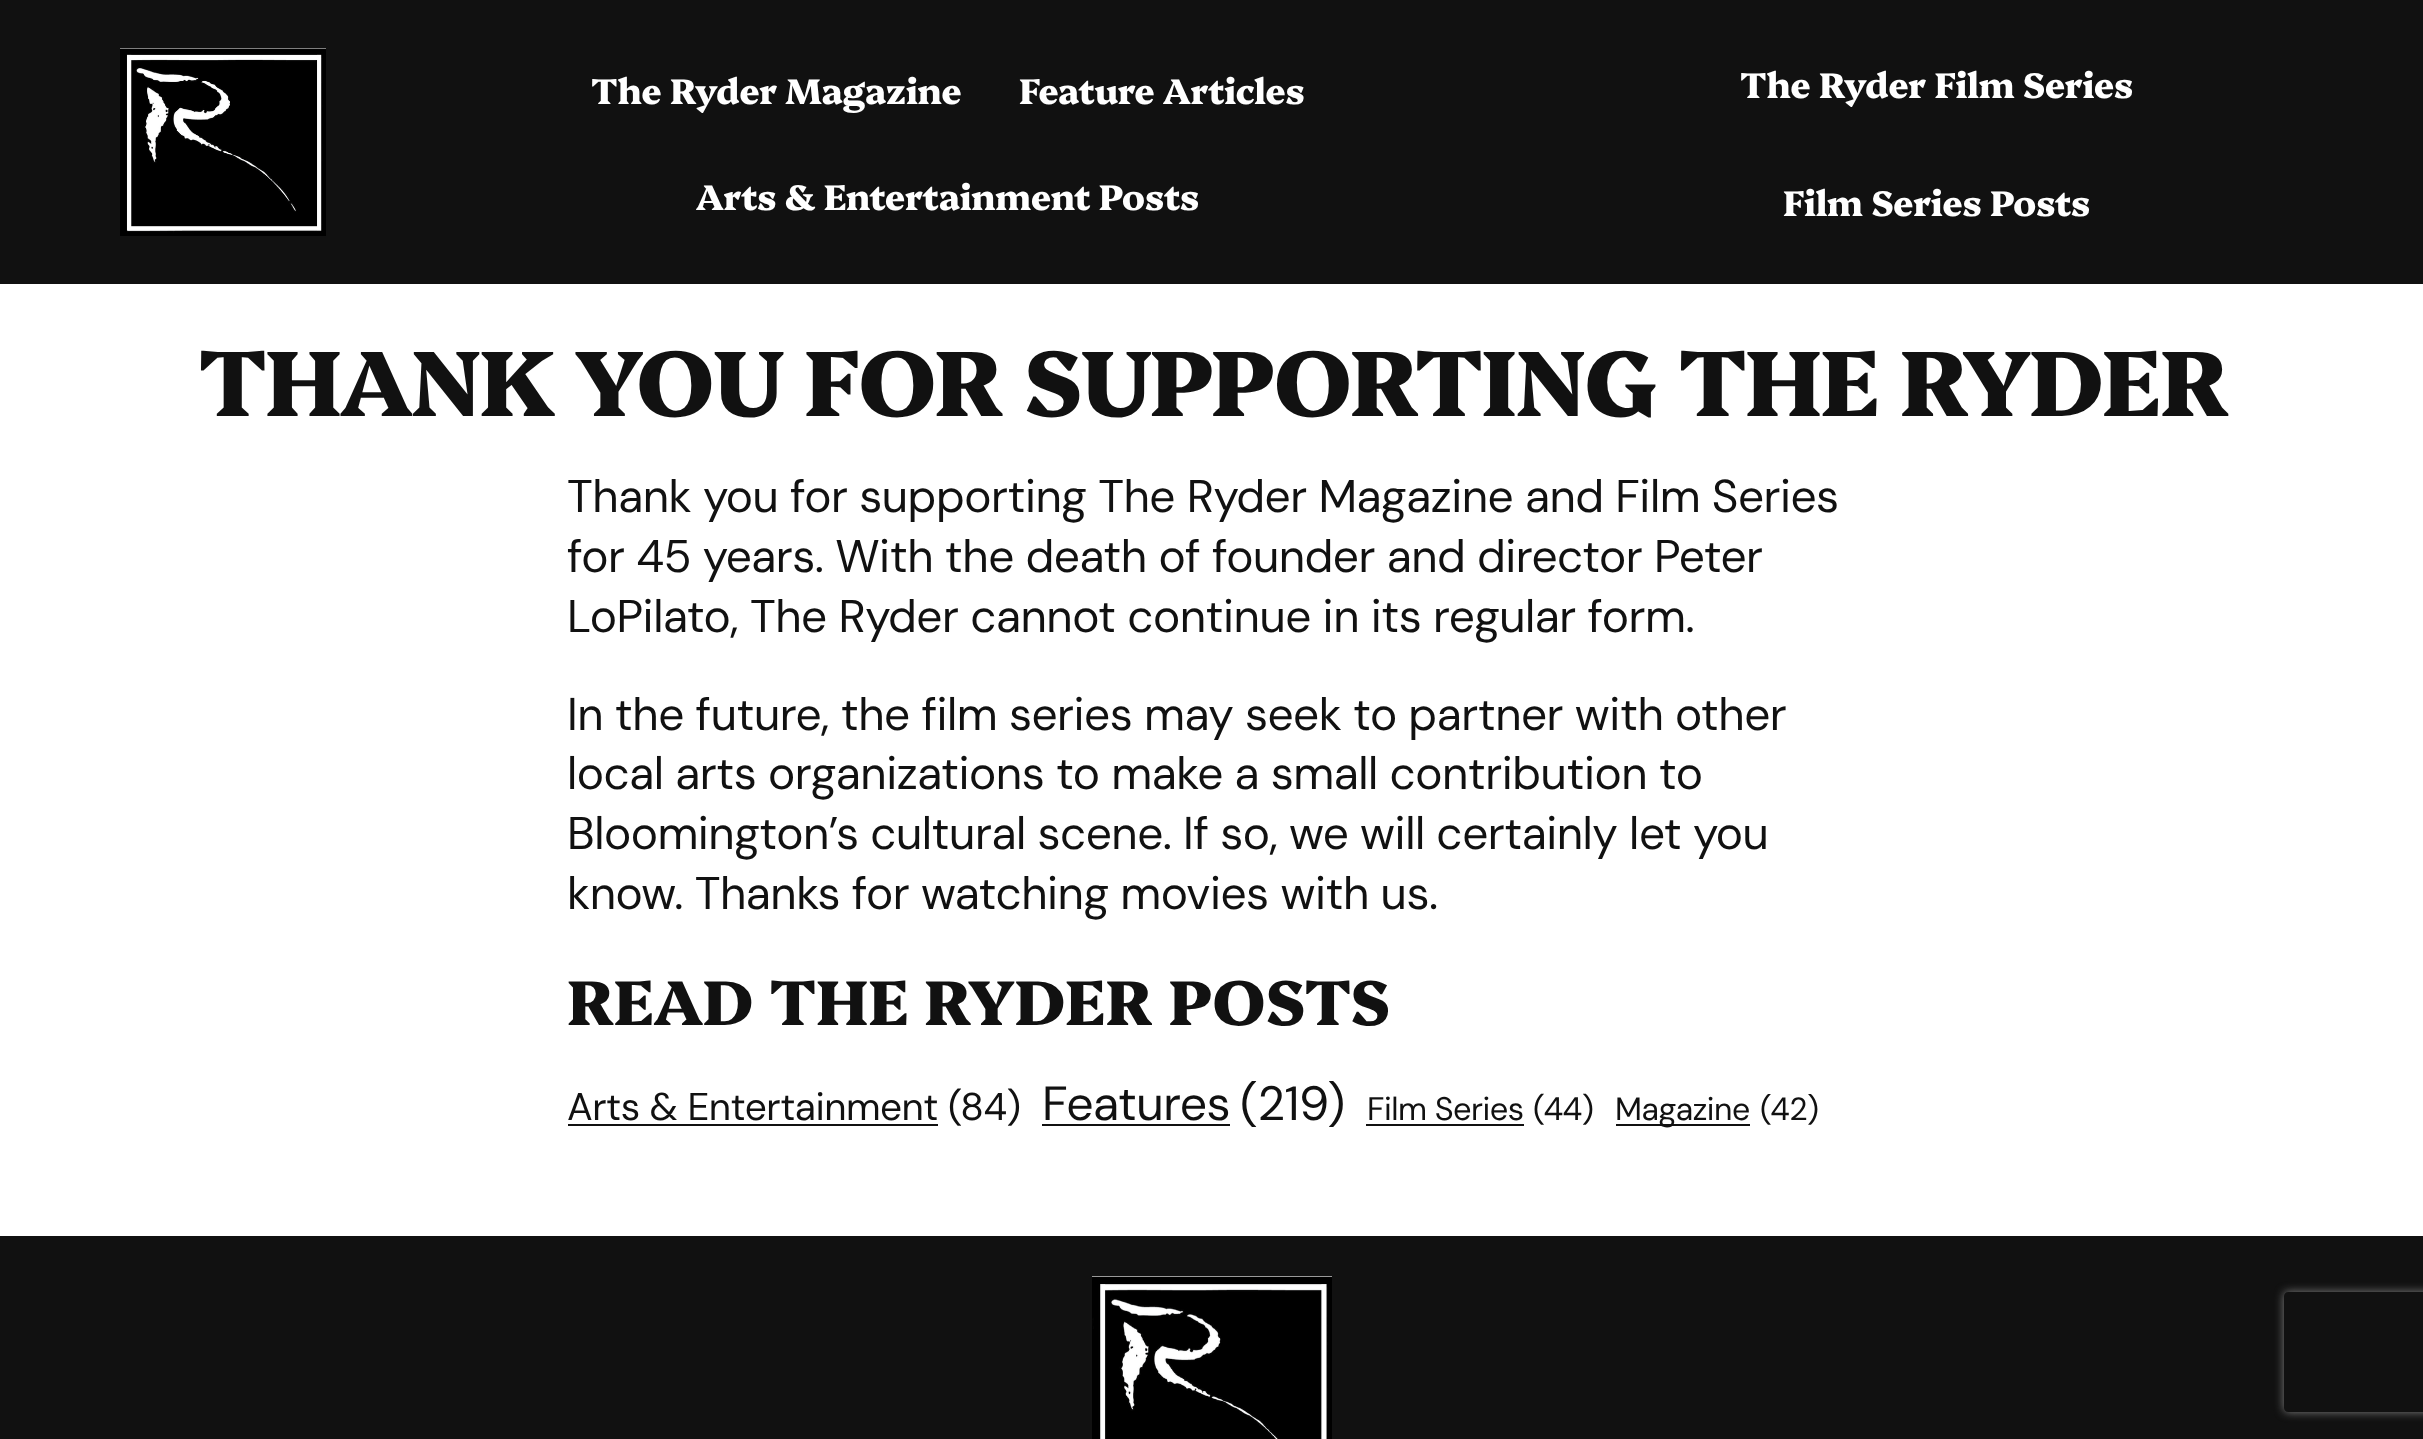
<svg xmlns="http://www.w3.org/2000/svg" xmlns:xlink="http://www.w3.org/1999/xlink" width="2423" height="1439" viewBox="0 0 2423 1439">
<style>
.cls-1{font:800 35.5px Platypi;letter-spacing:-0.48px;fill:#ffffff}
.cls-2{font:800 92.6px Platypi;letter-spacing:-1.9px;fill:#111111}
.cls-3{font:45.9px DM Sans;letter-spacing:-0.48px;fill:#111111}
.cls-4{font:800 63px Platypi;letter-spacing:-0.25px;fill:#111111}
.cls-5{font:38.75px DM Sans;letter-spacing:-0.48px;fill:#111111}
.cls-6{font:48px DM Sans;letter-spacing:-0.48px;fill:#111111}
.cls-7{font:32.5px DM Sans;letter-spacing:-0.48px;fill:#111111}
.cls-8{font:32px DM Sans;letter-spacing:-0.48px;fill:#111111}
</style>
<defs>
<clipPath id="clip1"><path d="M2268 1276H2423V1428H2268ZM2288 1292H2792C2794 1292 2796 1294 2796 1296V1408C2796 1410 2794 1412 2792 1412H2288C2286 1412 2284 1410 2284 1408V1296C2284 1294 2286 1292 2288 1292Z" clip-rule="evenodd"/></clipPath>
</defs>
<rect width="100%" height="100%" fill="#ffffff"/>
<rect fill="#111111" x="0" y="0" width="2423" height="284"/>
<image xlink:href="image0.png" x="120" y="48" width="206" height="188"/>
<rect fill="#111111" x="568" y="1124" width="370" height="2"/>
<rect fill="#111111" x="1042" y="1124" width="188" height="2"/>
<rect fill="#111111" x="1366" y="1124" width="158" height="2"/>
<rect fill="#111111" x="1616" y="1124" width="134" height="2"/>
<rect fill="#111111" x="0" y="1236" width="2423" height="203"/>
<image xlink:href="image1.png" x="1092" y="1276" width="240" height="163"/>
<g clip-path="url(#clip1)">
<rect fill="#808080" filter="blur(5px)" x="2284" y="1292" width="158" height="120" rx="4"/>
</g>
<text class="cls-1" x="591" y="104">The Ryder Magazine</text>
<text class="cls-1" x="1019" y="104">Feature Articles</text>
<text class="cls-1" x="696" y="210">Arts &amp; Entertainment Posts</text>
<text class="cls-1" x="1740" y="98">The Ryder Film Series</text>
<text class="cls-1" x="1783" y="216">Film Series Posts</text>
<text class="cls-2" x="198" y="416">THANK YOU FOR SUPPORTING THE RYDER</text>
<text class="cls-3"><tspan x="567" y="512">Thank you for supporting The Ryder Magazine and Film Series</tspan><tspan x="567" y="572">for 45 years. With the death of founder and director Peter</tspan><tspan x="567" y="632">LoPilato, The Ryder cannot continue in its regular form.</tspan></text>
<text class="cls-3"><tspan x="567" y="730">In the future, the film series may seek to partner with other</tspan><tspan x="567" y="789">local arts organizations to make a small contribution to</tspan><tspan x="567" y="849">Bloomington’s cultural scene. If so, we will certainly let you</tspan><tspan x="567" y="909">know. Thanks for watching movies with us.</tspan></text>
<text class="cls-4" x="567" y="1025">READ THE RYDER POSTS</text>
<text class="cls-5" x="567" y="1120">Arts &amp; Entertainment (84)</text>
<text class="cls-6" x="1042" y="1120">Features</text>
<text class="cls-6" x="1240" y="1120">(219)</text>
<text class="cls-7" x="1367" y="1120">Film Series</text>
<text class="cls-7" x="1533" y="1120">(44)</text>
<text class="cls-8" x="1615" y="1120">Magazine</text>
<text class="cls-8" x="1760" y="1120">(42)</text>
</svg>
